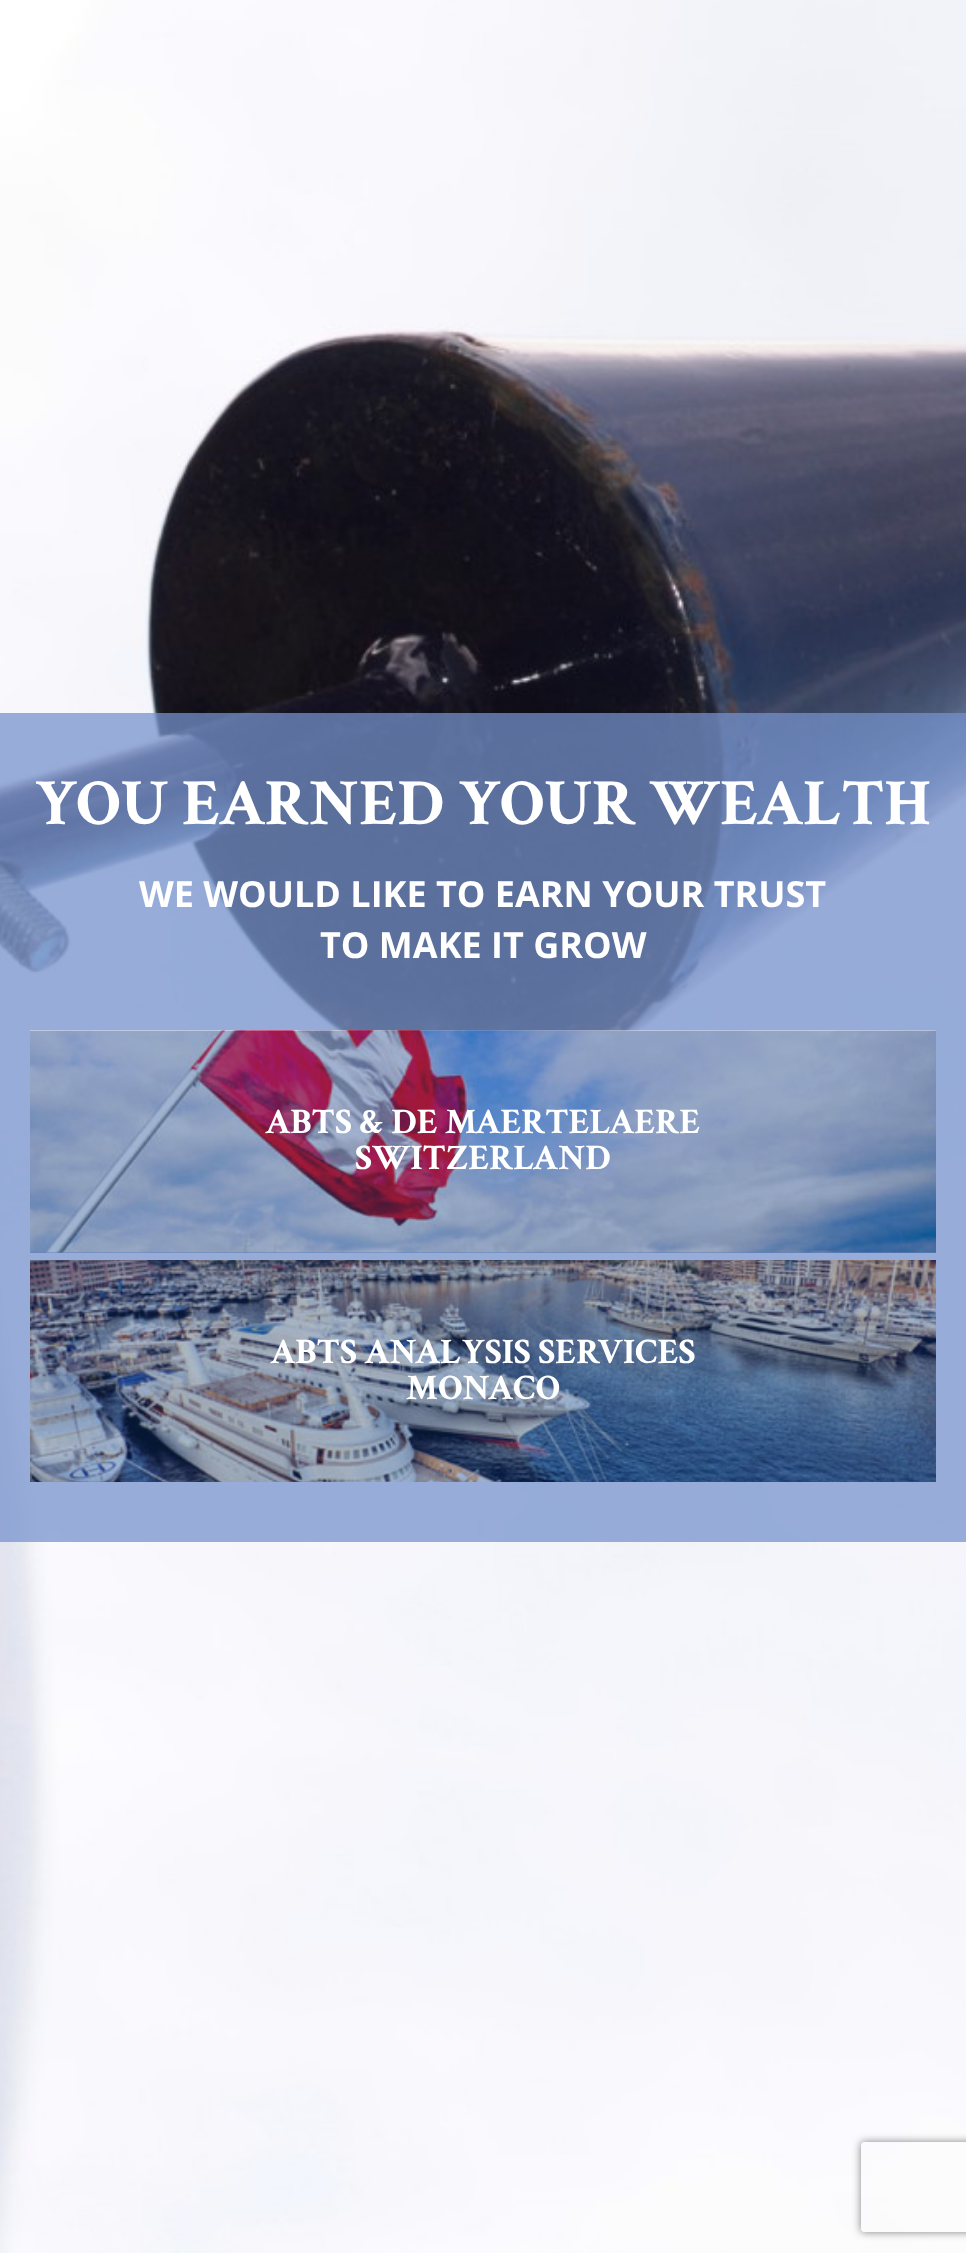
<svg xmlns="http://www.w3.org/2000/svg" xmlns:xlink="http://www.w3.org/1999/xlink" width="966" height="2253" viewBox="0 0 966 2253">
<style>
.cls-1{font:bold 66px Crimson Text;fill:#ffffff}
.cls-2{font:bold 36px Open Sans;fill:#ffffff}
.cls-3{font:bold 36px Crimson Text;fill:#ffffff}
</style>
<defs>
<clipPath id="clip1"><path d="M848 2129H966V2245H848ZM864 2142H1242C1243.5 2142 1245 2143.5 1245 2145V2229C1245 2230.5 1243.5 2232 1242 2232H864C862.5 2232 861 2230.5 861 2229V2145C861 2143.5 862.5 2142 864 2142Z" clip-rule="evenodd"/></clipPath>
</defs>
<rect width="100%" height="100%" fill="#ffffff"/>
<image xlink:href="image0.png" x="0" y="0" width="966" height="2253"/>
<rect fill="#7692cc" fill-opacity="0.74" x="0" y="713" width="966" height="829"/>
<image xlink:href="image1.png" x="30" y="1030" width="906" height="223"/>
<rect fill="#0e3e8a" fill-opacity="0.39" x="30" y="1031" width="906" height="222"/>
<image xlink:href="image2.png" x="30" y="1260" width="906" height="222"/>
<g clip-path="url(#clip1)">
<rect fill="#808080" filter="blur(4px)" x="861" y="2142" width="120" height="90" rx="3"/>
</g>
<text class="cls-1" x="34" y="824">YOU EARNED YOUR WEALTH</text>
<text class="cls-2" x="139" y="907">WE WOULD LIKE TO EARN YOUR TRUST</text>
<text class="cls-2" x="320" y="958">TO MAKE IT GROW</text>
<text class="cls-3" x="265" y="1133">ABTS &amp; DE MAERTELAERE</text>
<text class="cls-3" x="355" y="1169">SWITZERLAND</text>
<text class="cls-3" x="270" y="1363">ABTS ANALYSIS SERVICES</text>
<text class="cls-3" x="406" y="1399">MONACO</text>
</svg>
